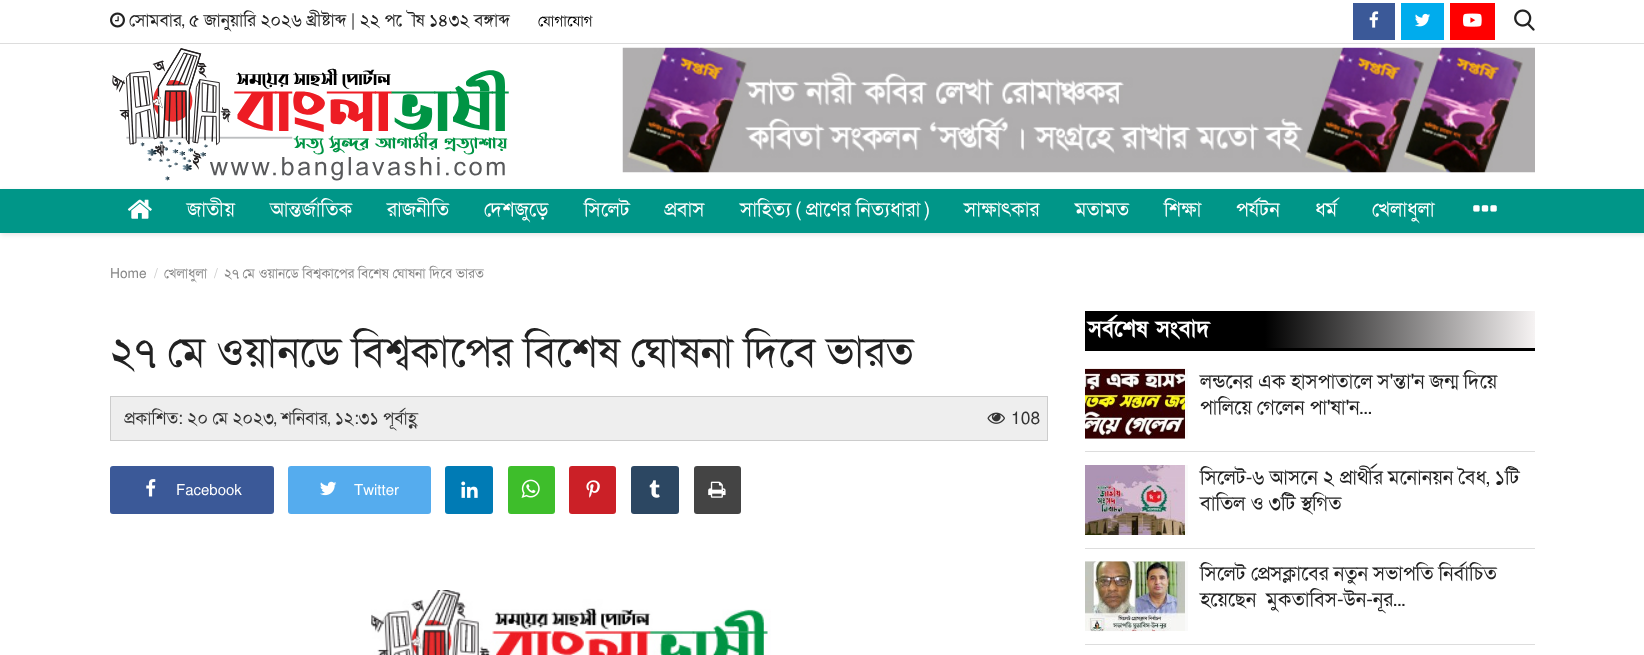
<svg xmlns="http://www.w3.org/2000/svg" xmlns:xlink="http://www.w3.org/1999/xlink" width="1644" height="655" viewBox="0 0 1644 655">
<style>
.cls-1{font:17.5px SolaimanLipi;fill:#222222}
.cls-2{font:15px SolaimanLipi;fill:#000000}
.cls-3{font:20px SolaimanLipi;fill:#ffffff}
.cls-4{font:13.75px SolaimanLipi;fill:#888888}
.cls-5{font:13.75px SolaimanLipi;fill:#cccccc}
.cls-6{font:42.5px SolaimanLipi;fill:#222222}
.cls-7{font:17.5px SolaimanLipi;fill:#333333}
.cls-8{font:15px SolaimanLipi;fill:#ffffff}
.cls-9{font:bold 22.5px SolaimanLipi;fill:#ffffff}
.cls-10{font:20px SolaimanLipi;fill:#222222}
</style>
<defs>
<linearGradient id="g1" gradientUnits="userSpaceOnUse" x1="1085" y1="329" x2="1535" y2="329"><stop offset="0.4" stop-color="#000000"/><stop offset="1" stop-color="#f6f3f3"/></linearGradient>
</defs>
<rect width="100%" height="100%" fill="#ffffff"/>
<rect fill="#dddddd" x="0" y="43" width="1644" height="1"/>
<image xlink:href="image0.png" x="110" y="12" width="15" height="16"/>
<rect fill="#3b5998" x="1353" y="3" width="42" height="37"/>
<image xlink:href="image1.png" x="1369" y="11" width="10" height="17"/>
<rect fill="#00aced" x="1401" y="3" width="43" height="37"/>
<image xlink:href="image2.png" x="1415" y="13" width="15" height="14"/>
<rect fill="#ff0000" x="1450" y="3" width="45" height="37"/>
<image xlink:href="image3.png" x="1463" y="13" width="19" height="14"/>
<image xlink:href="image4.png" x="1514" y="9" width="21" height="22"/>
<image xlink:href="image5.png" x="112" y="48" width="397" height="133"/>
<image xlink:href="image6.png" x="622" y="47" width="913" height="126"/>
<rect fill="#000000" fill-opacity="0.1" filter="blur(2.5px)" x="1" y="191" width="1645" height="44"/>
<rect fill="#009688" x="0" y="189" width="1644" height="44"/>
<image xlink:href="image7.png" x="127" y="199" width="25" height="20"/>
<image xlink:href="image8.png" x="1473" y="205" width="24" height="7"/>
<rect fill="#eeeeee" stroke="#cccccc" x="110.5" y="396.5" width="937" height="44"/>
<image xlink:href="image9.png" x="987" y="412" width="18" height="12"/>
<rect fill="#3b5998" x="110" y="466" width="164" height="48" rx="3"/>
<image xlink:href="image10.png" x="146" y="479" width="10" height="18"/>
<rect fill="#55acee" x="288" y="466" width="143" height="48" rx="3"/>
<image xlink:href="image11.png" x="320" y="481" width="17" height="15"/>
<rect fill="#007bb5" x="445" y="466" width="48" height="48" rx="3"/>
<image xlink:href="image12.png" x="461" y="481" width="17" height="17"/>
<rect fill="#3ebe2b" x="508" y="466" width="47" height="48" rx="3"/>
<image xlink:href="image13.png" x="521" y="479" width="19" height="19"/>
<rect fill="#cb2027" x="569" y="466" width="47" height="48" rx="3"/>
<image xlink:href="image14.png" x="586" y="480" width="14" height="18"/>
<rect fill="#2c4762" x="631" y="466" width="48" height="48" rx="3"/>
<image xlink:href="image15.png" x="649" y="480" width="11" height="18"/>
<rect fill="#444444" x="694" y="466" width="47" height="48" rx="3"/>
<image xlink:href="image16.png" x="708" y="481" width="18" height="17"/>
<image xlink:href="image17.png" x="371" y="590" width="400" height="65"/>
<rect fill="url(#g1)" x="1085" y="311" width="450" height="37"/>
<rect fill="#000000" x="1085" y="348" width="450" height="3"/>
<rect fill="#dddddd" x="1085" y="451" width="450" height="1"/>
<rect fill="#fafafa" x="1085" y="369" width="103" height="70"/>
<image xlink:href="image18.png" x="1085" y="368" width="100" height="71"/>
<rect fill="#dddddd" x="1085" y="548" width="450" height="1"/>
<rect fill="#fafafa" x="1185" y="465" width="3" height="70"/>
<image xlink:href="image19.png" x="1085" y="465" width="100" height="70"/>
<rect fill="#dddddd" x="1085" y="644" width="450" height="1"/>
<rect fill="#fafafa" x="1085" y="561" width="103" height="70"/>
<image xlink:href="image20.png" x="1085" y="561" width="100" height="71"/>
<text class="cls-1" x="129" y="26">সোমবার, ৫ জানুয়ারি ২০২৬ খ্রীষ্টাব্দ | ২২ পৌষ ১৪৩২ বঙ্গাব্দ</text>
<text class="cls-2" x="538" y="26">যোগাযোগ</text>
<text class="cls-3" x="187" y="216">জাতীয়</text>
<text class="cls-3" x="270" y="216">আন্তর্জাতিক</text>
<text class="cls-3" x="387" y="216">রাজনীতি</text>
<text class="cls-3" x="484" y="216">দেশজুড়ে</text>
<text class="cls-3" x="584" y="216">সিলেট</text>
<text class="cls-3" x="664" y="216">প্রবাস</text>
<text class="cls-3" x="740" y="216">সাহিত্য ( প্রাণের নিত্যধারা )</text>
<text class="cls-3" x="964" y="216">সাক্ষাৎকার</text>
<text class="cls-3" x="1075" y="216">মতামত</text>
<text class="cls-3" x="1164" y="216">শিক্ষা</text>
<text class="cls-3" x="1236" y="216">পর্যটন</text>
<text class="cls-3" x="1315" y="216">ধর্ম</text>
<text class="cls-3" x="1372" y="216">খেলাধুলা</text>
<text class="cls-4" x="110" y="278">Home</text>
<text class="cls-5" x="154" y="278">/</text>
<text class="cls-4" x="164" y="278">খেলাধুলা</text>
<text class="cls-5" x="214" y="278">/</text>
<text class="cls-4" x="224" y="278">২৭ মে ওয়ানডে বিশ্বকাপের বিশেষ ঘোষনা দিবে ভারত</text>
<text class="cls-6" x="110" y="366">২৭ মে ওয়ানডে বিশ্বকাপের বিশেষ ঘোষনা দিবে ভারত</text>
<text class="cls-7" x="124" y="424">প্রকাশিত: ২০ মে ২০২৩, শনিবার, ১২:৩১ পূর্বাহ্ণ</text>
<text class="cls-7" x="1011" y="424">108</text>
<text class="cls-8" x="176" y="495">Facebook</text>
<text class="cls-8" x="354" y="495">Twitter</text>
<text class="cls-9" x="1088" y="336">সর্বশেষ সংবাদ</text>
<text class="cls-10"><tspan x="1200" y="388">লন্ডনের এক হাসপাতালে স'ন্তা'ন জন্ম দিয়ে</tspan><tspan x="1200" y="414">পালিয়ে গেলেন পা'ষা'ন...</tspan></text>
<text class="cls-10"><tspan x="1200" y="484">সিলেট-৬ আসনে ২ প্রার্থীর মনোনয়ন বৈধ, ১টি</tspan><tspan x="1200" y="510">বাতিল ও ৩টি স্থগিত</tspan></text>
<text class="cls-10" xml:space="preserve"><tspan x="1200" y="580">সিলেট প্রেসক্লাবের নতুন সভাপতি নির্বাচিত</tspan><tspan x="1200" y="606">হয়েছেন  মুকতাবিস-উন-নূর...</tspan></text>
</svg>
